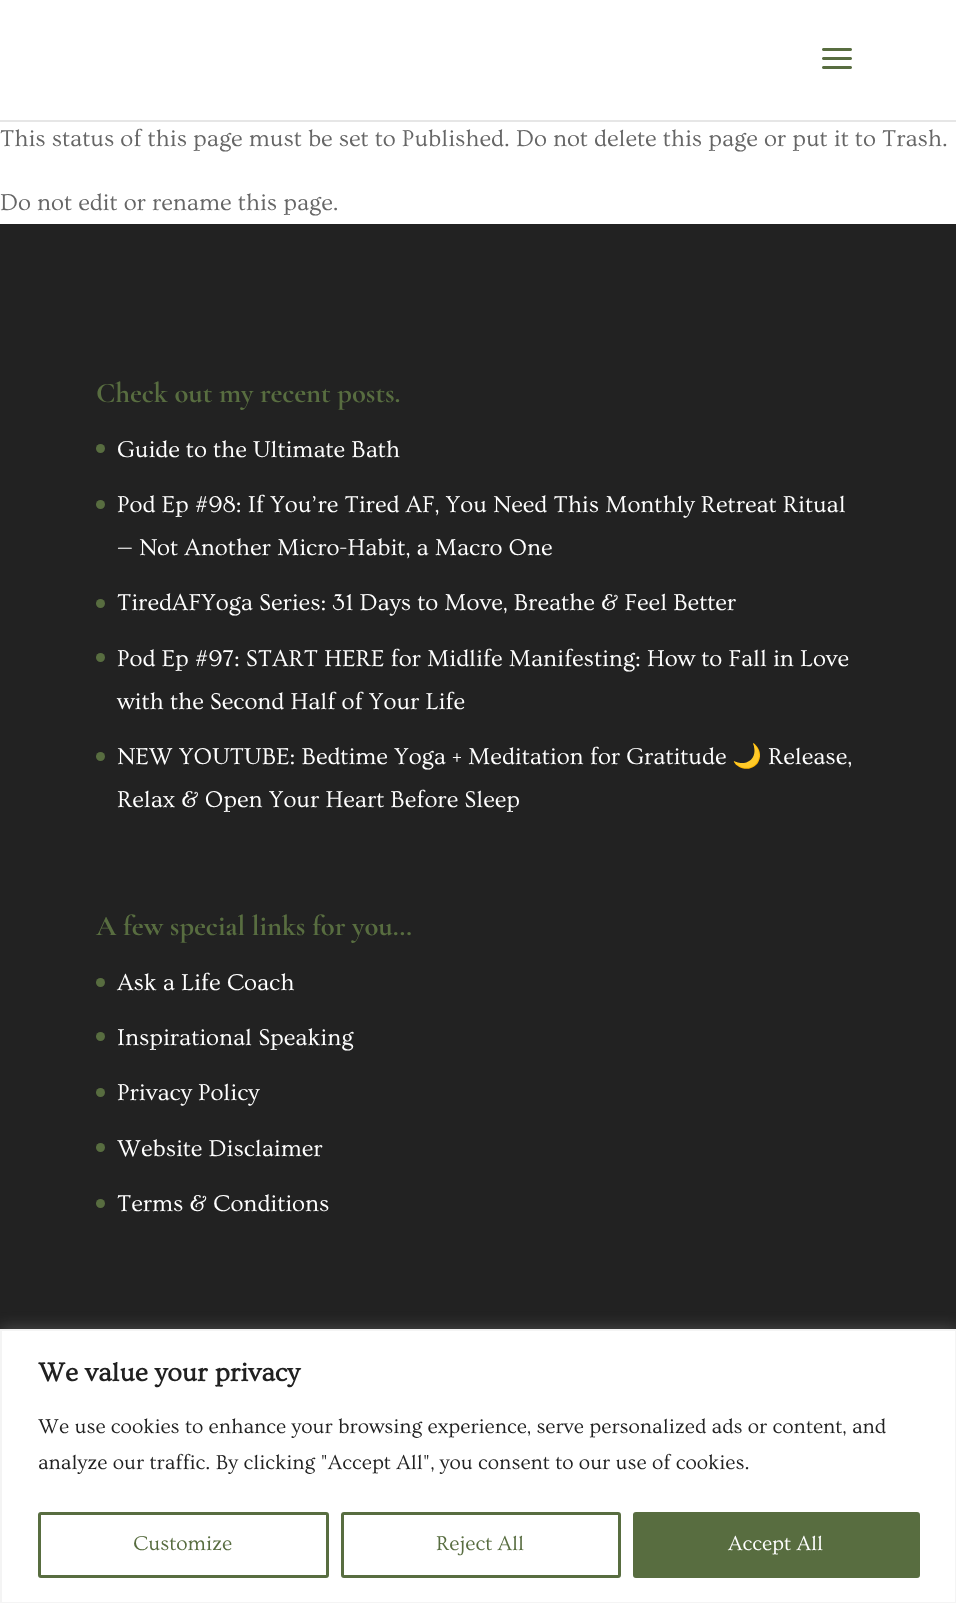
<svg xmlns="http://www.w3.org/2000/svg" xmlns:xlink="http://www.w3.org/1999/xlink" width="956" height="1603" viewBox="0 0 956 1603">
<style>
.cls-1{font:24px Ovo;fill:#666666}
.cls-2{font:bold 28.5px Cormorant Garamond;fill:#586d40}
.cls-3{font:24px Ovo;fill:#ffffff}
.cls-4{font:24px Noto Color Emoji;fill:#ffffff}
.cls-5{font:bold 27px Ovo;fill:#212121}
.cls-6{font:21px Ovo;fill:#212121}
.cls-7{font:21px Ovo;fill:#586d40}
.cls-8{font:21px Ovo;fill:#ffffff}
</style>
<rect width="100%" height="100%" fill="#ffffff"/>
<rect fill="#e6e6e6" x="0" y="120" width="956" height="2"/>
<image xlink:href="image0.png" x="822" y="48" width="30" height="21"/>
<rect fill="#222222" x="0" y="224" width="956" height="1105"/>
<circle fill="#586d40" cx="100.5" cy="448.5" r="4.5"/>
<circle fill="#586d40" cx="100.5" cy="504.5" r="4.5"/>
<circle fill="#586d40" cx="100.5" cy="603.5" r="4.5"/>
<circle fill="#586d40" cx="100.5" cy="657.5" r="4.5"/>
<circle fill="#586d40" cx="100.5" cy="756.5" r="4.5"/>
<circle fill="#586d40" cx="100.5" cy="982.5" r="4.5"/>
<circle fill="#586d40" cx="100.5" cy="1036.5" r="4.5"/>
<circle fill="#586d40" cx="100.5" cy="1092.5" r="4.5"/>
<circle fill="#586d40" cx="100.5" cy="1147.5" r="4.5"/>
<circle fill="#586d40" cx="100.5" cy="1203.5" r="4.5"/>
<rect fill="#acabab" fill-opacity="0.3" filter="blur(7.5px)" x="0" y="1328" width="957" height="274"/>
<rect fill="#ffffff" stroke="#f4f4f4" stroke-width="2" x="1" y="1330" width="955" height="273"/>
<rect fill="none" stroke="#586d40" stroke-width="3" x="39.5" y="1513.5" width="288" height="63" rx="1.5"/>
<rect fill="none" stroke="#586d40" stroke-width="3" x="342.5" y="1513.5" width="277" height="63" rx="1.5"/>
<rect fill="#586d40" stroke="#586d40" stroke-width="3" x="634.5" y="1513.5" width="284" height="63" rx="1.5"/>
<text class="cls-1" x="0" y="146">This status of this page must be set to Published. Do not delete this page or put it to Trash.</text>
<text class="cls-1" x="0" y="210">Do not edit or rename this page.</text>
<text class="cls-2" x="96" y="402">Check out my recent posts.</text>
<text class="cls-3" x="117" y="457">Guide to the Ultimate Bath</text>
<text class="cls-3"><tspan x="117" y="512">Pod Ep #98: If You’re Tired AF, You Need This Monthly Retreat Ritual</tspan><tspan x="117" y="555">— Not Another Micro-Habit, a Macro One</tspan></text>
<text class="cls-3" x="117" y="610">TiredAFYoga Series: 31 Days to Move, Breathe &amp; Feel Better</text>
<text class="cls-3"><tspan x="117" y="666">Pod Ep #97: START HERE for Midlife Manifesting: How to Fall in Love</tspan><tspan x="117" y="709">with the Second Half of Your Life</tspan></text>
<text class="cls-3" x="117" y="764">NEW YOUTUBE: Bedtime Yoga + Meditation for Gratitude</text>
<text class="cls-4" x="732" y="764">🌙</text>
<text class="cls-3" x="768" y="764">Release,</text>
<text class="cls-3" x="117" y="807">Relax &amp; Open Your Heart Before Sleep</text>
<text class="cls-2" x="96" y="935">A few special links for you…</text>
<text class="cls-3" x="117" y="990">Ask a Life Coach</text>
<text class="cls-3" x="117" y="1045">Inspirational Speaking</text>
<text class="cls-3" x="117" y="1100">Privacy Policy</text>
<text class="cls-3" x="117" y="1156">Website Disclaimer</text>
<text class="cls-3" x="117" y="1211">Terms &amp; Conditions</text>
<text class="cls-5" x="38" y="1381">We value your privacy</text>
<text class="cls-6"><tspan x="38" y="1433">We use cookies to enhance your browsing experience, serve personalized ads or content, and</tspan><tspan x="38" y="1469">analyze our traffic. By clicking "Accept All", you consent to our use of cookies.</tspan></text>
<text class="cls-7" x="133" y="1550">Customize</text>
<text class="cls-7" x="436" y="1550">Reject All</text>
<text class="cls-8" x="728" y="1550">Accept All</text>
</svg>
